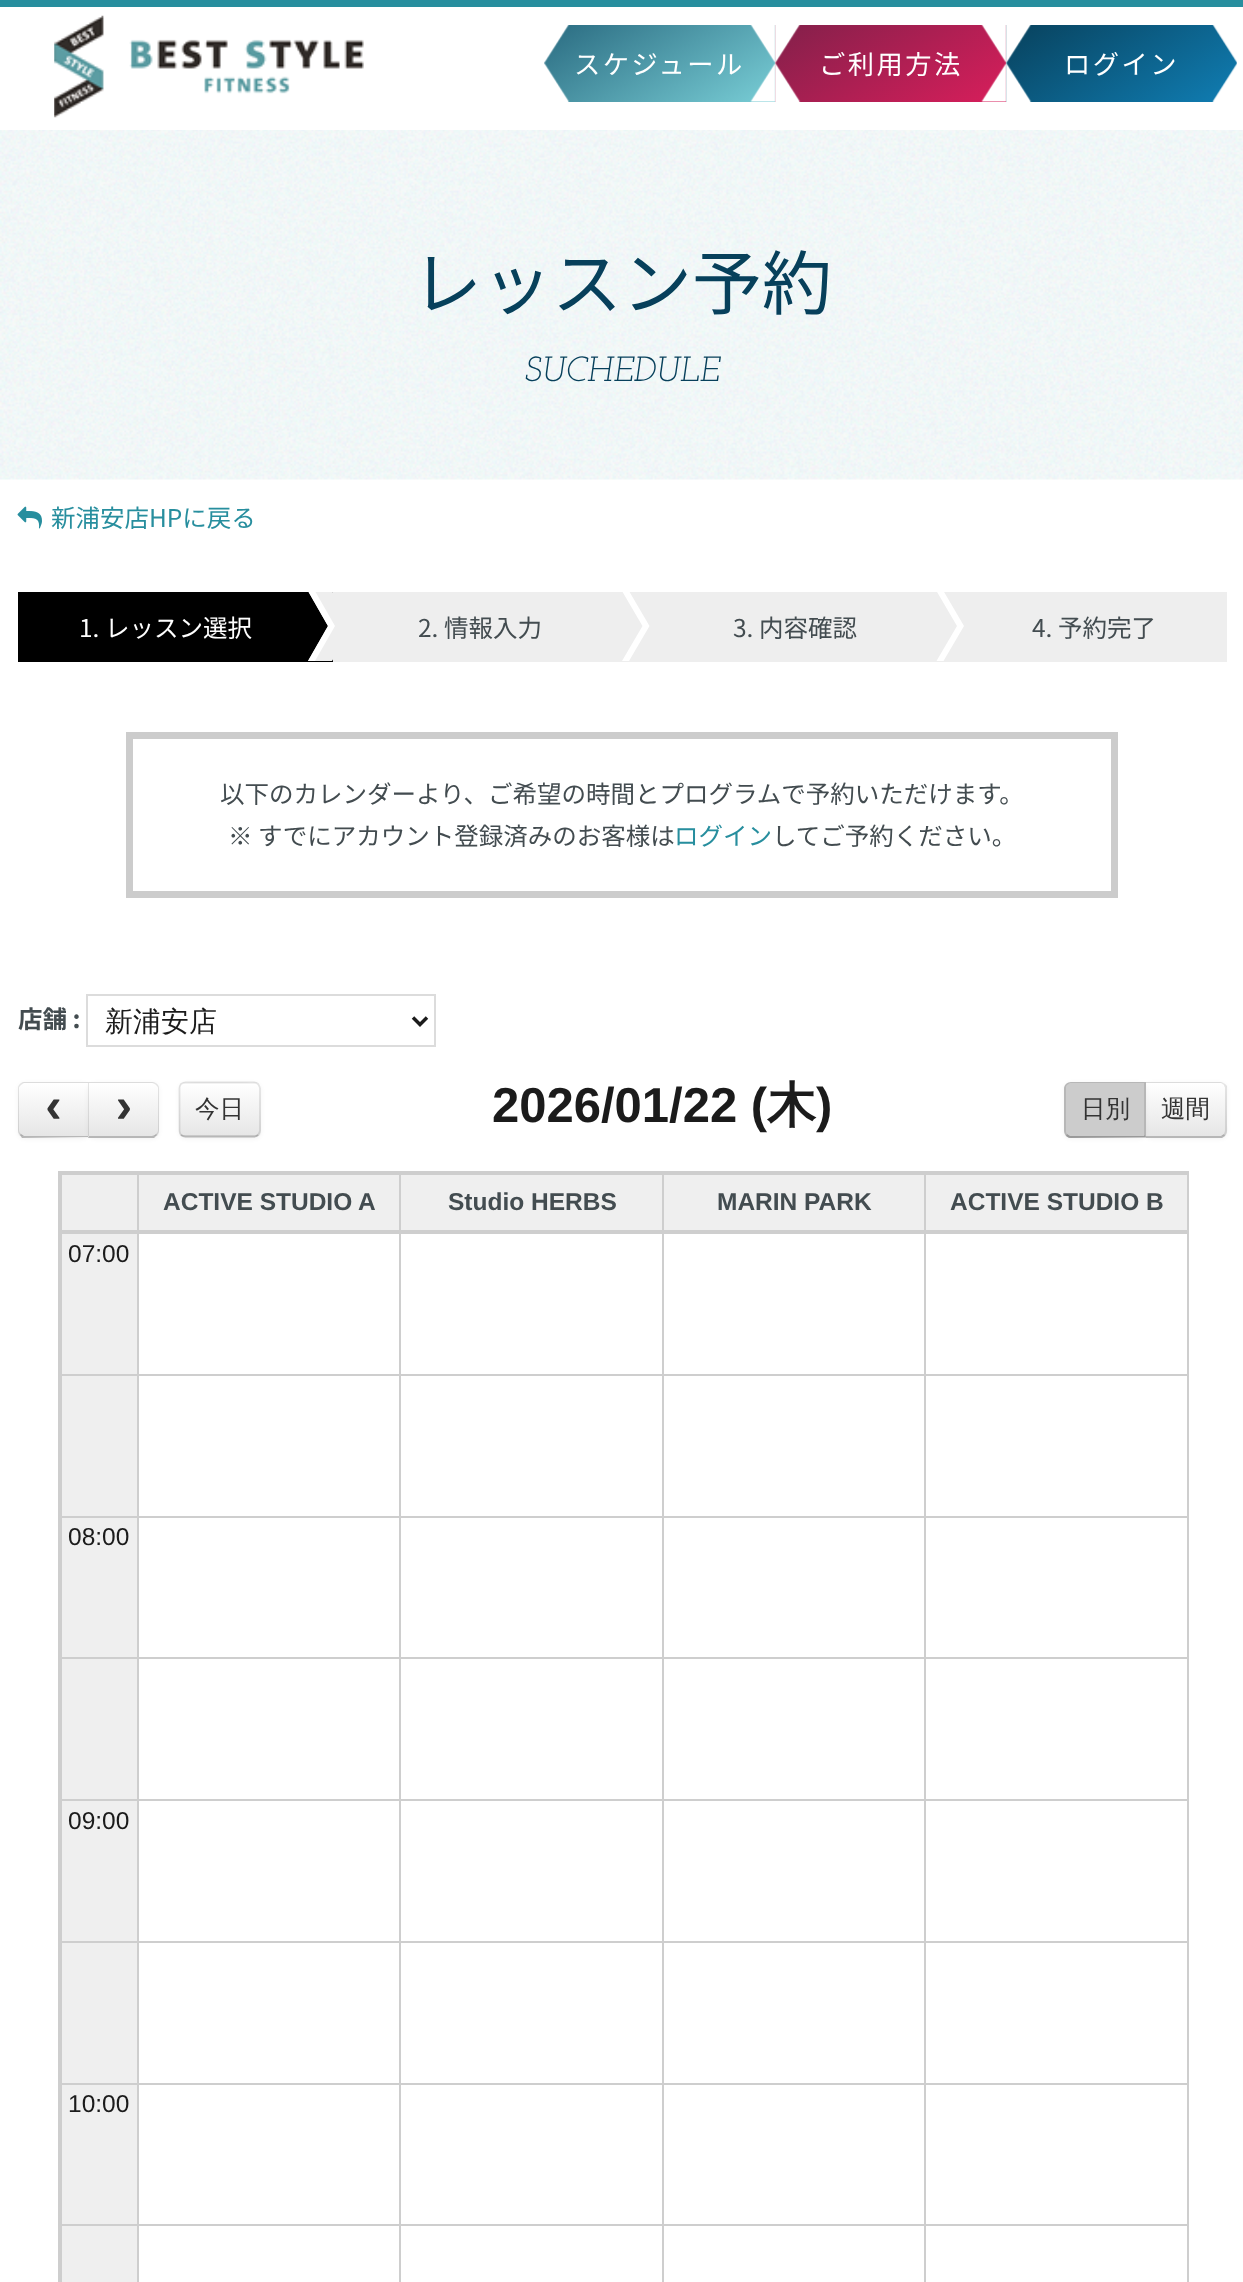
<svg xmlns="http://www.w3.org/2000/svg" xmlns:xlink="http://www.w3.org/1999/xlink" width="1243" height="2282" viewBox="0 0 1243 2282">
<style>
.cls-1{font:26.25px Noto Sans JP;letter-spacing:2.5px;fill:#ffffff}
.cls-2{font:70px Noto Sans JP;fill:#07405b}
.cls-3{font:italic 35px Josefin Slab;fill:#07405b}
.cls-4{font:24.5px Noto Sans JP;fill:#278e9e}
.cls-5{font:24.5px Noto Sans JP;fill:#ffffff}
.cls-6{font:24.5px Noto Sans JP;fill:#434c50}
.cls-7{font:bold 24.5px Noto Sans JP;fill:#434c50}
.cls-8{font:500 28px WenQuanYi Zen Hei;fill:#1b1b1b}
.cls-9{font:bold 49px Liberation Mono;fill:#333333}
.cls-10{font:500 24.5px WenQuanYi Zen Hei;fill:#333333}
.cls-11{font:bold 49px Liberation Sans;fill:#1b1b1b}
.cls-12{font:bold 49px WenQuanYi Zen Hei;fill:#1b1b1b}
.cls-13{font:bold 24.5px Liberation Sans;fill:#434c50}
.cls-14{font:24.5px Liberation Sans;fill:#1b1b1b}
</style>
<defs>
<linearGradient id="g1" gradientUnits="userSpaceOnUse" x1="709" y1="143" x2="610" y2="-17"><stop offset="0" stop-color="#79ced6"/><stop offset="1" stop-color="#296a80"/></linearGradient>
<linearGradient id="g2" gradientUnits="userSpaceOnUse" x1="940" y1="143" x2="841" y2="-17"><stop offset="0" stop-color="#d81e5b"/><stop offset="1" stop-color="#82204a"/></linearGradient>
<linearGradient id="g3" gradientUnits="userSpaceOnUse" x1="1171" y1="143" x2="1072" y2="-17"><stop offset="0" stop-color="#107eb4"/><stop offset="1" stop-color="#08415c"/></linearGradient>
<clipPath id="clip1"><rect x="18" y="592" width="1209" height="70"/></clipPath>
<clipPath id="clip2"><path d="M25 1082H89V1138H25C21 1138 18 1135 18 1131V1089C18 1085 21 1082 25 1082Z"/></clipPath>
<linearGradient id="g4" gradientUnits="userSpaceOnUse" x1="53" y1="1083" x2="53" y2="1136"><stop offset="0" stop-color="#ffffff"/><stop offset="1" stop-color="#e6e6e6"/></linearGradient>
<clipPath id="clip3"><path d="M88 1082H152C156 1082 159 1085 159 1089V1131C159 1135 156 1138 152 1138H88Z"/></clipPath>
<linearGradient id="g5" gradientUnits="userSpaceOnUse" x1="123" y1="1083" x2="123" y2="1136"><stop offset="0" stop-color="#ffffff"/><stop offset="1" stop-color="#e6e6e6"/></linearGradient>
<clipPath id="clip4"><rect x="179" y="1082" width="82" height="56" rx="7"/></clipPath>
<linearGradient id="g6" gradientUnits="userSpaceOnUse" x1="220" y1="1083" x2="220" y2="1136"><stop offset="0" stop-color="#ffffff"/><stop offset="1" stop-color="#e6e6e6"/></linearGradient>
<clipPath id="clip5"><path d="M1145 1082H1220C1224 1082 1227 1085 1227 1089V1131C1227 1135 1224 1138 1220 1138H1145Z"/></clipPath>
<linearGradient id="g7" gradientUnits="userSpaceOnUse" x1="1186" y1="1083" x2="1186" y2="1136"><stop offset="0" stop-color="#ffffff"/><stop offset="1" stop-color="#e6e6e6"/></linearGradient>
</defs>
<rect width="100%" height="100%" fill="#ffffff"/>
<rect fill="#278e9e" x="0" y="0" width="1243" height="7"/>
<image xlink:href="image0.png" x="54" y="15" width="310" height="103"/>
<rect fill="url(#g1)" x="544" y="25" width="231" height="77"/>
<image xlink:href="image1.png" x="544" y="25" width="26" height="77"/>
<rect fill="url(#g2)" x="775" y="25" width="231" height="77"/>
<image xlink:href="image2.png" x="750" y="25" width="26" height="77"/>
<image xlink:href="image3.png" x="775" y="25" width="26" height="77"/>
<rect fill="url(#g3)" x="1006" y="25" width="231" height="77"/>
<image xlink:href="image4.png" x="981" y="25" width="26" height="77"/>
<image xlink:href="image5.png" x="1006" y="25" width="26" height="77"/>
<image xlink:href="image6.png" x="1212" y="25" width="25" height="77"/>
<image xlink:href="image7.png" x="0" y="130" width="1243" height="350"/>
<image xlink:href="image8.png" x="17" y="506" width="25" height="23"/>
<rect fill="#000000" x="18" y="592" width="315" height="70"/>
<rect fill="#eeeeee" x="333" y="592" width="894" height="70"/>
<g clip-path="url(#clip1)">
<path fill="#eeeeee" d="M308 591H332L353 626H328Z"/>
<path fill="#ffffff" d="M308 591H315L335 626H328Z"/>
</g>
<path fill="#eeeeee" d="M328 626H353L332 661H308Z"/>
<path fill="#ffffff" d="M328 626H335L315 661H308Z"/>
<g clip-path="url(#clip1)">
<path fill="#ffffff" d="M622 591H629L649.5 626H642.5Z"/>
</g>
<path fill="#ffffff" d="M642.5 626H649.5L629 661H622Z"/>
<g clip-path="url(#clip1)">
<path fill="#ffffff" d="M936.5 591H943.5L964 626H957Z"/>
</g>
<path fill="#ffffff" d="M957 626H964L943.5 661H936.5Z"/>
<rect fill="none" stroke="#cccccc" stroke-width="7" x="129.5" y="735.5" width="985" height="159"/>
<rect fill="none" stroke="#dcdcdc" stroke-width="2" x="87" y="995" width="348" height="51"/>
<path fill="none" stroke="#1b1b1b" stroke-width="3.5" d="M413 1017.5L420 1024.5L427 1017.5"/>
<rect fill="#000000" fill-opacity="0.05" filter="blur(2px)" x="18" y="1083" width="71" height="56" rx="7"/>
<path fill="#f5f5f5" d="M25 1082H89V1138H25C21 1138 18 1135 18 1131V1089C18 1085 21 1082 25 1082Z"/>
<g clip-path="url(#clip2)">
<rect fill="url(#g4)" x="18" y="1083" width="70" height="53"/>
</g>
<path fill="#000000" fill-opacity="0.1" d="M24 1082C22 1082 21 1083 20 1084L21 1085L24 1083H88L89 1082Z"/>
<path fill="#000000" fill-opacity="0.25" d="M22 1138L20 1135L21 1134L24 1136H88L89 1137Z"/>
<path fill="#000000" fill-opacity="0.1" d="M20 1084C19 1085 18 1086 18 1088V1130C18 1132 19 1134 20 1135L21 1134C20 1133 19 1132 19 1130V1088C19 1087 20 1086 21 1085Z"/>
<rect fill="#000000" fill-opacity="0.05" filter="blur(2px)" x="88" y="1083" width="71" height="56" rx="7"/>
<path fill="#f5f5f5" d="M88 1082H152C156 1082 159 1085 159 1089V1131C159 1135 156 1138 152 1138H88Z"/>
<g clip-path="url(#clip3)">
<rect fill="url(#g5)" x="88" y="1083" width="71" height="53"/>
</g>
<path fill="#000000" fill-opacity="0.1" d="M88 1082L89 1083H152C153 1083 155 1084 156 1085L157 1084C156 1083 154 1082 152 1082Z"/>
<path fill="#000000" fill-opacity="0.1" d="M157 1084C158 1085 159 1086 159 1088V1130C159 1132 158 1134 157 1135L156 1134C157 1133 158 1132 158 1130V1088C158 1087 157 1086 156 1085Z"/>
<path fill="#000000" fill-opacity="0.25" d="M88 1138L89 1136H152C153 1136 155 1135 156 1134L157 1135L154 1138Z"/>
<path fill="#000000" fill-opacity="0.1" d="M89 1083L88 1082V1137L89 1136Z"/>
<rect fill="#000000" fill-opacity="0.05" filter="blur(2px)" x="179" y="1083" width="82" height="56" rx="7"/>
<rect fill="#f5f5f5" x="179" y="1082" width="82" height="56" rx="7"/>
<g clip-path="url(#clip4)">
<rect fill="url(#g6)" x="179" y="1083" width="82" height="53"/>
</g>
<path fill="#ffffff" d="M186 1085H254C257 1085 259 1087 259 1090C259 1080 251 1083 242 1083H196C188 1083 180 1080 180 1090C180 1087 183 1085 186 1085Z"/>
<path fill="none" stroke="#000000" stroke-opacity="0.25" stroke-width="1.8" d="M258 1135C257 1136 255.5 1136.5 254 1136.5H185.5C184 1136.5 182.5 1136 181 1135"/>
<path fill="none" stroke="#000000" stroke-opacity="0.1" stroke-width="1.8" d="M181 1135C180 1133.5 179.5 1132 179.5 1130.5V1088.5C179.5 1087 180 1085.5 181 1084C182.5 1083 184 1082.5 185.5 1082.5H254C255.5 1082.5 257 1083 258 1084C259 1085.5 260 1087 260 1088.5V1130.5C260 1132 259 1133.5 258 1135"/>
<rect fill="#000000" fill-opacity="0.05" filter="blur(2px)" x="1145" y="1083" width="82" height="56" rx="7"/>
<path fill="#f5f5f5" d="M1145 1082H1220C1224 1082 1227 1085 1227 1089V1131C1227 1135 1224 1138 1220 1138H1145Z"/>
<g clip-path="url(#clip5)">
<rect fill="url(#g7)" x="1146" y="1083" width="81" height="53"/>
</g>
<path fill="#000000" fill-opacity="0.1" d="M1146 1083H1221L1224 1085L1225 1084C1223 1083 1222 1082 1220 1082H1145Z"/>
<path fill="#000000" fill-opacity="0.1" d="M1225 1084L1227 1086V1124C1227 1129 1228 1132 1225 1136L1224 1134C1224 1133 1225 1132 1225 1130V1088C1225 1087 1224 1086 1224 1085Z"/>
<path fill="#000000" fill-opacity="0.25" d="M1225 1136L1222 1138H1144L1146 1136H1221L1224 1134Z"/>
<rect fill="#000000" fill-opacity="0.05" filter="blur(2px)" x="1064" y="1083" width="82" height="56" rx="7"/>
<path fill="#cccccc" d="M1071 1082H1146V1138H1071C1067 1138 1064 1135 1064 1131V1089C1064 1085 1067 1082 1071 1082Z"/>
<path fill="#000000" fill-opacity="0.1" d="M1071 1082C1069 1082 1067 1083 1066 1084L1067 1085L1070 1083H1144V1084L1146 1082Z"/>
<path fill="#000000" fill-opacity="0.1" d="M1146 1137V1082L1144 1084V1135Z"/>
<path fill="#000000" fill-opacity="0.25" d="M1069 1138L1066 1136L1067 1134L1070 1136H1144V1135L1146 1137Z"/>
<path fill="#000000" fill-opacity="0.1" d="M1064 1088V1130C1064 1132 1065 1134 1066 1136L1067 1134C1066 1133 1066 1132 1066 1130V1088C1066 1087 1066 1086 1067 1085L1066 1084C1065 1085 1064 1086 1064 1088Z"/>
<rect fill="#cecece" x="1187" y="1171" width="2" height="1111"/>
<rect fill="#cecece" x="58" y="1171" width="2" height="1111"/>
<rect fill="#cecece" x="58" y="1171" width="1130" height="2"/>
<rect fill="#efefef" x="139" y="1175" width="1048" height="55"/>
<rect fill="#cecece" x="137" y="1173" width="1051" height="2"/>
<rect fill="#cecece" x="137" y="1230" width="1051" height="2"/>
<rect fill="#cecece" x="58" y="1232" width="1130" height="2"/>
<rect fill="#cecece" x="137" y="1374" width="1051" height="2"/>
<rect fill="#cecece" x="137" y="1516" width="1051" height="2"/>
<rect fill="#cecece" x="137" y="1657" width="1051" height="2"/>
<rect fill="#cecece" x="137" y="1799" width="1051" height="2"/>
<rect fill="#cecece" x="137" y="1941" width="1051" height="2"/>
<rect fill="#cecece" x="137" y="2083" width="1051" height="2"/>
<rect fill="#cecece" x="137" y="2224" width="1051" height="2"/>
<rect fill="#cecece" x="399" y="1171" width="2" height="1111"/>
<rect fill="#cecece" x="662" y="1171" width="2" height="1111"/>
<rect fill="#cecece" x="924" y="1171" width="2" height="1111"/>
<rect fill="#efefef" x="62" y="1175" width="75" height="55"/>
<rect fill="#cecece" x="137" y="1173" width="2" height="59"/>
<rect fill="#cecece" x="60" y="1173" width="78" height="2"/>
<rect fill="#cecece" x="60" y="1230" width="78" height="2"/>
<rect fill="#cecece" x="60" y="1173" width="2" height="59"/>
<rect fill="#efefef" x="62" y="1376" width="75" height="140"/>
<rect fill="#cecece" x="137" y="2224" width="2" height="58"/>
<rect fill="#cecece" x="60" y="2224" width="78" height="2"/>
<rect fill="#cecece" x="137" y="2083" width="2" height="143"/>
<rect fill="#cecece" x="60" y="2083" width="78" height="2"/>
<rect fill="#cecece" x="137" y="1941" width="2" height="143"/>
<rect fill="#cecece" x="60" y="1941" width="78" height="2"/>
<rect fill="#cecece" x="137" y="1799" width="2" height="144"/>
<rect fill="#cecece" x="60" y="1799" width="78" height="2"/>
<rect fill="#cecece" x="137" y="1657" width="2" height="144"/>
<rect fill="#cecece" x="60" y="1657" width="78" height="2"/>
<rect fill="#cecece" x="137" y="1516" width="2" height="143"/>
<rect fill="#cecece" x="60" y="1516" width="78" height="2"/>
<rect fill="#cecece" x="137" y="1374" width="2" height="143"/>
<rect fill="#cecece" x="60" y="1374" width="78" height="2"/>
<rect fill="#cecece" x="60" y="2224" width="2" height="58"/>
<rect fill="#cecece" x="60" y="2083" width="2" height="143"/>
<rect fill="#cecece" x="60" y="1941" width="2" height="143"/>
<rect fill="#cecece" x="60" y="1799" width="2" height="144"/>
<rect fill="#cecece" x="60" y="1657" width="2" height="144"/>
<rect fill="#cecece" x="60" y="1516" width="2" height="143"/>
<rect fill="#cecece" x="60" y="1232" width="2" height="285"/>
<rect fill="#efefef" x="62" y="1234" width="75" height="140"/>
<rect fill="#cecece" x="137" y="1232" width="2" height="144"/>
<rect fill="#efefef" x="62" y="1518" width="75" height="139"/>
<rect fill="#efefef" x="62" y="1659" width="75" height="140"/>
<rect fill="#efefef" x="62" y="1801" width="75" height="140"/>
<rect fill="#efefef" x="62" y="1943" width="75" height="140"/>
<rect fill="#efefef" x="62" y="2085" width="75" height="139"/>
<rect fill="#efefef" x="62" y="2226" width="75" height="56"/>
<text class="cls-1" x="574" y="74">スケジュール</text>
<text class="cls-1" x="819" y="74">ご利用方法</text>
<text class="cls-1" x="1064" y="74">ログイン</text>
<text class="cls-2" x="412" y="309">レッスン予約</text>
<text class="cls-3" x="524" y="381">SUCHEDULE</text>
<text class="cls-4" x="51" y="527">新浦安店HPに戻る</text>
<text class="cls-5" x="79" y="637">1. レッスン選択</text>
<text class="cls-6" x="418" y="637">2. 情報入力</text>
<text class="cls-6" x="733" y="637">3. 内容確認</text>
<text class="cls-6" x="1032" y="637">4. 予約完了</text>
<text class="cls-6" x="220" y="803">以下のカレンダーより、ご希望の時間とプログラムで予約いただけます。</text>
<text class="cls-6" x="228" y="845">※ すでにアカウント登録済みのお客様は</text>
<text class="cls-4" x="674" y="845">ログイン</text>
<text class="cls-6" x="772" y="845">してご予約ください。</text>
<text class="cls-7" x="18" y="1028">店舗 :</text>
<text class="cls-8" x="105" y="1031">新浦安店</text>
<text class="cls-9" x="39" y="1122">‹</text>
<text class="cls-9" x="109" y="1122">›</text>
<text class="cls-10" x="195" y="1117">今日</text>
<text class="cls-11" x="492" y="1122">2026/01/22 (</text>
<text class="cls-12" x="767" y="1122">木</text>
<text class="cls-11" x="816" y="1122">)</text>
<text class="cls-10" x="1081" y="1117">日別</text>
<text class="cls-10" x="1161" y="1117">週間</text>
<text class="cls-13" x="163" y="1210">ACTIVE STUDIO A</text>
<text class="cls-13" x="448" y="1210">Studio HERBS</text>
<text class="cls-13" x="717" y="1210">MARIN PARK</text>
<text class="cls-13" x="950" y="1210">ACTIVE STUDIO B</text>
<text class="cls-14" x="68" y="1262">07:00</text>
<text class="cls-14" x="68" y="1545">08:00</text>
<text class="cls-14" x="68" y="1829">09:00</text>
<text class="cls-14" x="68" y="2112">10:00</text>
</svg>
